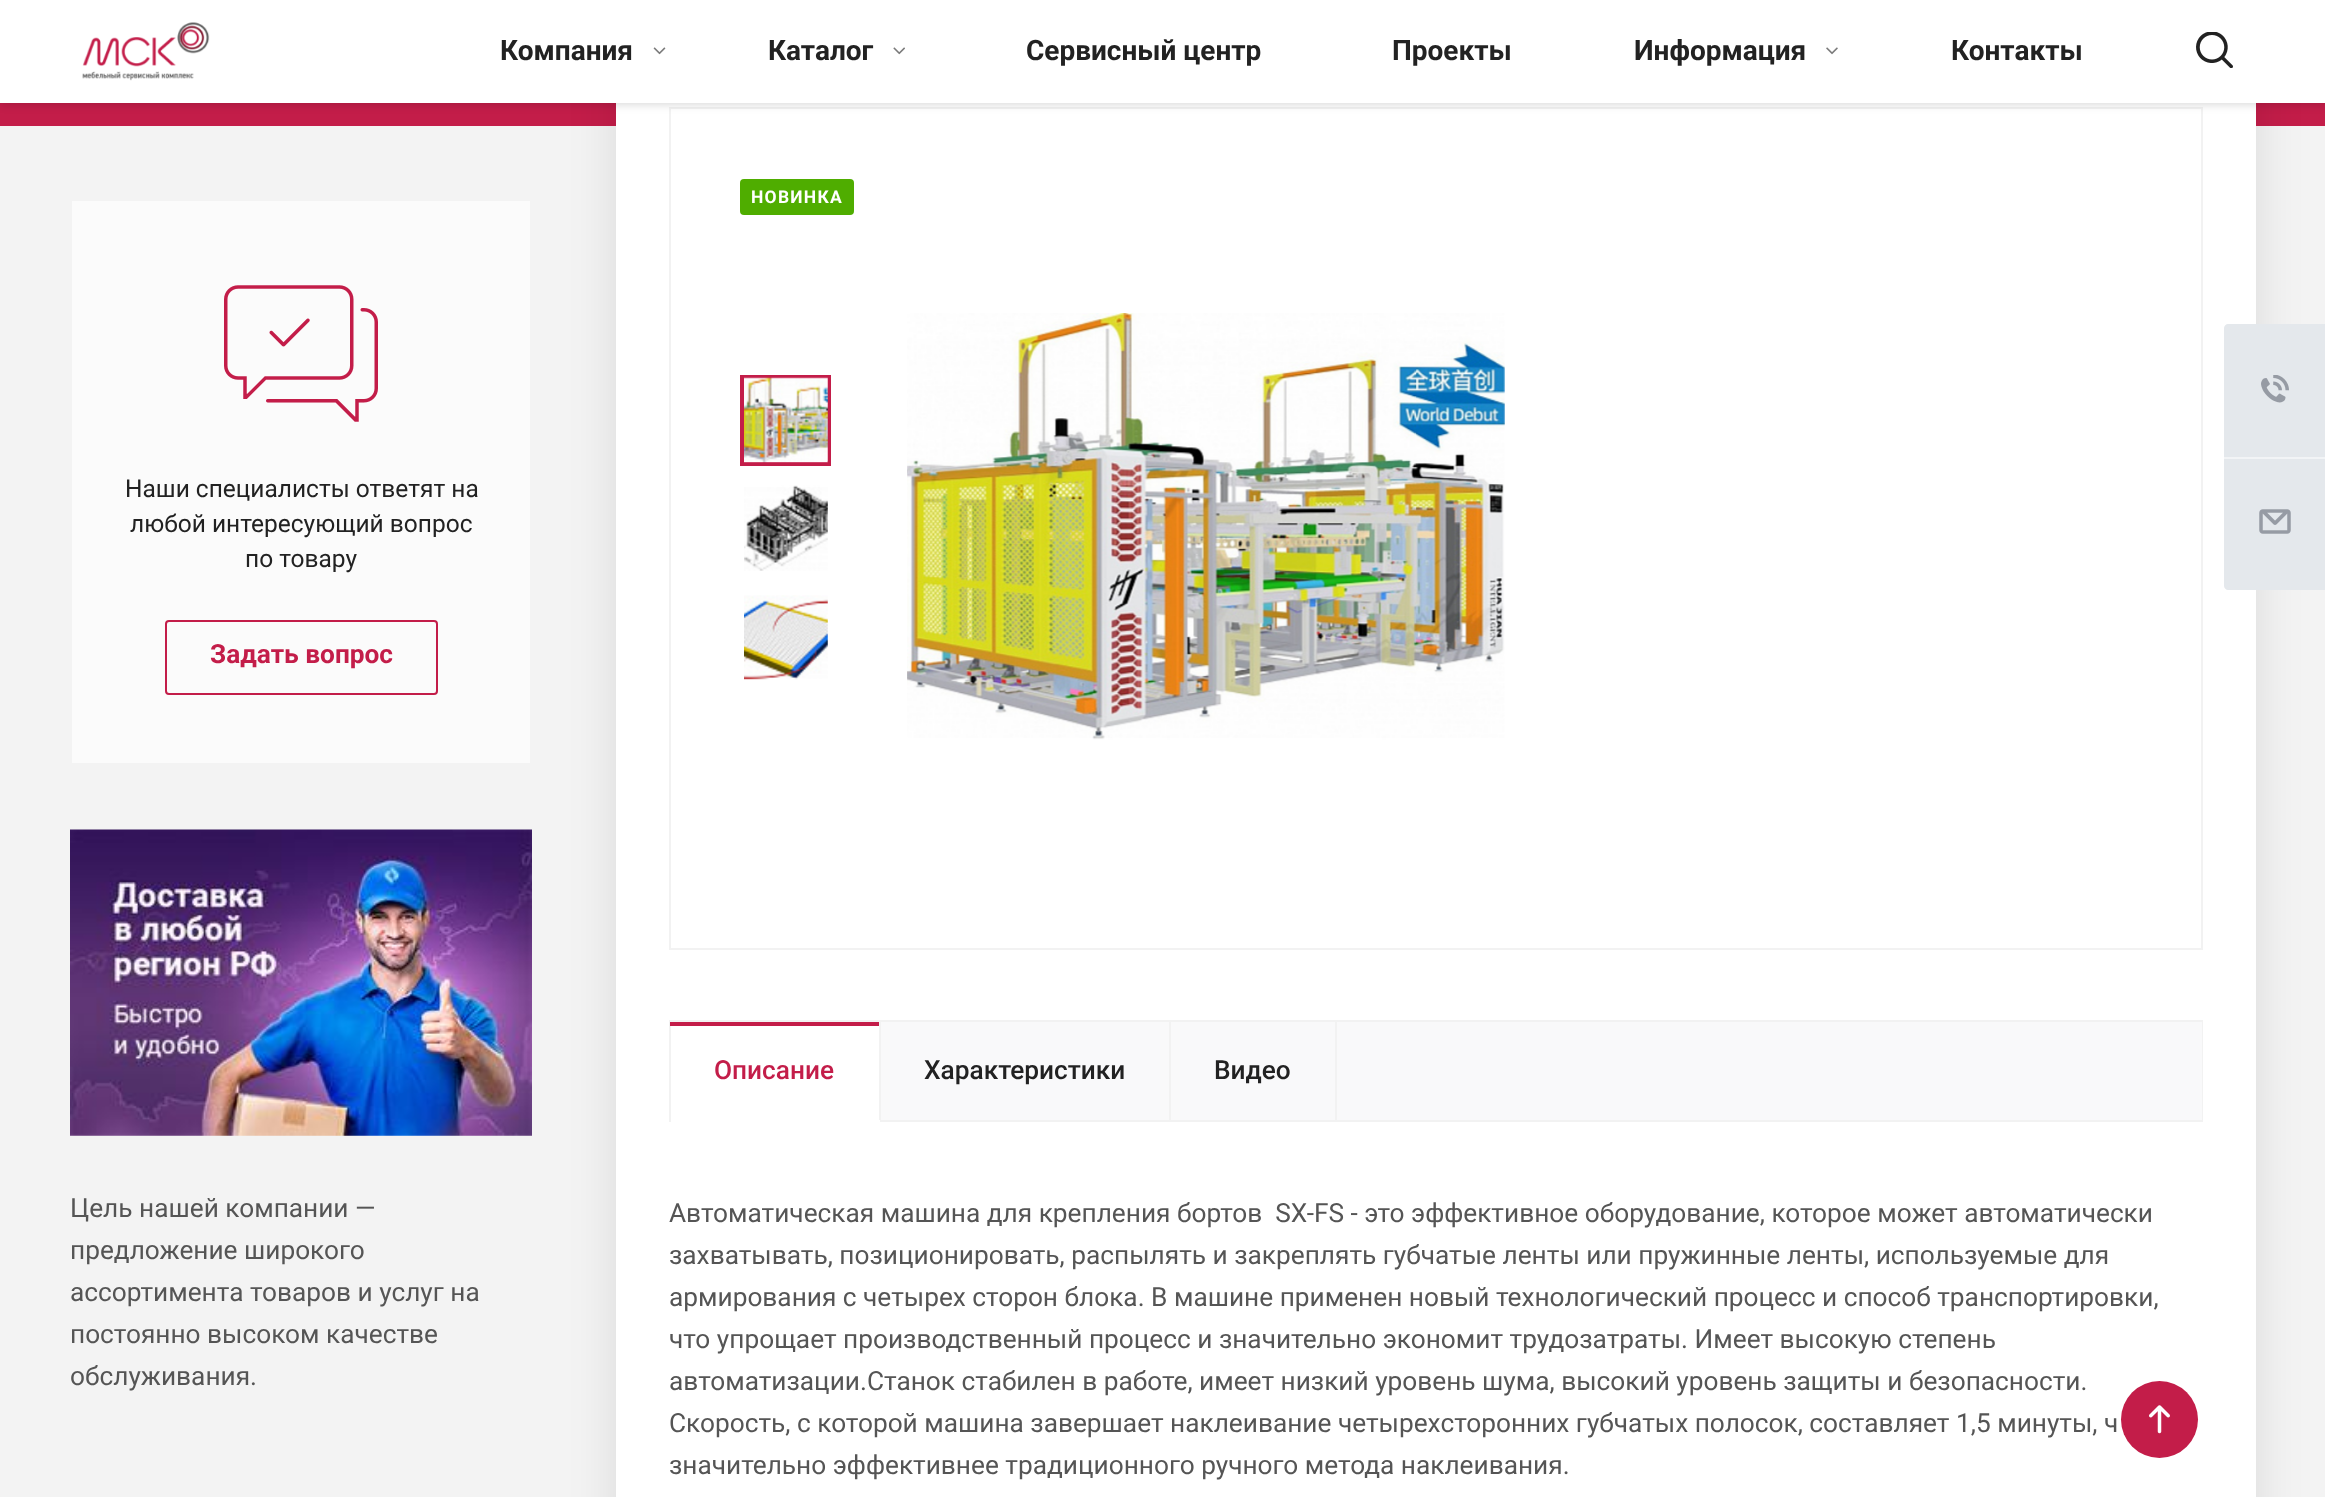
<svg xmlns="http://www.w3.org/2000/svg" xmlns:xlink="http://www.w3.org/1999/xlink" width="2325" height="1497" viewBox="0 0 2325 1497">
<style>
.cls-1{font:bold 28px Roboto;fill:#222222}
.cls-2{font:24.5px Roboto;fill:#222222}
.cls-3{font:bold 26.25px Roboto;fill:#c31d49}
.cls-4{font:26.25px Roboto;fill:#555555}
.cls-5{font:bold 17.5px Roboto;letter-spacing:1.25px;fill:#ffffff}
.cls-6{font:500 26.25px Roboto;fill:#c31d49}
.cls-7{font:500 26.25px Roboto;fill:#222222}
</style>
<rect width="100%" height="100%" fill="#f3f3f3"/>
<rect fill="#c31d49" x="0" y="103" width="2325" height="23"/>
<rect fill="#000000" fill-opacity="0.1" filter="blur(23.5px)" x="616" y="54" width="1640" height="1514"/>
<rect fill="#ffffff" x="616" y="103" width="1640" height="1394"/>
<rect fill="none" stroke="#f2f2f2" stroke-width="2" x="670" y="108" width="1532" height="841"/>
<rect fill="#000000" fill-opacity="0.14" filter="blur(4.5px)" x="0" y="2" width="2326" height="103"/>
<rect fill="#ffffff" x="0" y="0" width="2325" height="103"/>
<image xlink:href="image0.png" x="82" y="22" width="128" height="59"/>
<image xlink:href="image1.png" x="653" y="47" width="13" height="8"/>
<image xlink:href="image2.png" x="893" y="47" width="12" height="8"/>
<image xlink:href="image3.png" x="1826" y="47" width="12" height="8"/>
<image xlink:href="image4.png" x="2196" y="32" width="37" height="36"/>
<rect fill="#fbfbfb" x="72" y="201" width="458" height="562"/>
<image xlink:href="image5.png" x="224" y="285" width="154" height="137"/>
<rect fill="none" stroke="#c31d49" stroke-width="2" x="166" y="621" width="271" height="73" rx="3"/>
<image xlink:href="image6.png" x="70" y="829" width="462" height="307"/>
<rect fill="#4fad00" x="740" y="179" width="114" height="36" rx="4"/>
<rect fill="none" stroke="#c31d49" stroke-width="4" x="742" y="377" width="87" height="87"/>
<image xlink:href="image7.png" x="744" y="377" width="84" height="86"/>
<image xlink:href="image8.png" x="744" y="485" width="84" height="86"/>
<image xlink:href="image9.png" x="744" y="595" width="84" height="85"/>
<image xlink:href="image10.png" x="907" y="313" width="598" height="427"/>
<rect fill="#f9f9fa" x="1337" y="1022" width="865" height="98"/>
<rect fill="#f2f2f2" x="1337" y="1020" width="866" height="2"/>
<rect fill="#f2f2f2" x="2202" y="1020" width="1" height="102"/>
<rect fill="#f2f2f2" x="1337" y="1120" width="866" height="2"/>
<rect fill="#f9f9fa" stroke="#f2f2f2" stroke-width="2" x="880" y="1021" width="290" height="100"/>
<rect fill="#f2f2f2" x="669" y="1020" width="211" height="2"/>
<rect fill="#ffffff" x="879" y="1120" width="1" height="2"/>
<rect fill="#f2f2f2" x="669" y="1020" width="2" height="102"/>
<rect fill="#c31d49" x="670" y="1022" width="209" height="4"/>
<rect fill="#f9f9fa" stroke="#f2f2f2" stroke-width="2" x="1170" y="1021" width="166" height="100"/>
<path fill="#e4e8ec" d="M2228 324H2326V457H2224V328C2224 326 2226 324 2228 324Z"/>
<image xlink:href="image11.png" x="2261" y="375" width="28" height="28"/>
<path fill="#e4e8ec" d="M2224 457H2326V590H2228C2226 590 2224 588 2224 586Z"/>
<rect fill="#f2f4f6" x="2224" y="457" width="101" height="2"/>
<image xlink:href="image12.png" x="2259" y="509" width="32" height="25"/>
<circle fill="#c31d49" cx="2159.5" cy="1419.5" r="38.5"/>
<image xlink:href="image13.png" x="2149" y="1405" width="21" height="29"/>
<text class="cls-1" x="500" y="60">Компания</text>
<text class="cls-1" x="768" y="60">Каталог</text>
<text class="cls-1" x="1026" y="60">Сервисный центр</text>
<text class="cls-1" x="1392" y="60">Проекты</text>
<text class="cls-1" x="1634" y="60">Информация</text>
<text class="cls-1" x="1951" y="60">Контакты</text>
<text class="cls-2" x="125" y="497">Наши специалисты ответят на</text>
<text class="cls-2" x="130" y="532">любой интересующий вопрос</text>
<text class="cls-2" x="245" y="567">по товару</text>
<text class="cls-3" x="210" y="663">Задать вопрос</text>
<text class="cls-4"><tspan x="70" y="1217">Цель нашей компании —</tspan><tspan x="70" y="1259">предложение широкого</tspan><tspan x="70" y="1301">ассортимента товаров и услуг на</tspan><tspan x="70" y="1343">постоянно высоком качестве</tspan><tspan x="70" y="1385">обслуживания.</tspan></text>
<text class="cls-5" x="751" y="203">НОВИНКА</text>
<text class="cls-6" x="714" y="1079">Описание</text>
<text class="cls-7" x="924" y="1079">Характеристики</text>
<text class="cls-7" x="1214" y="1079">Видео</text>
<text class="cls-4" xml:space="preserve"><tspan x="669" y="1222">Автоматическая машина для крепления бортов  SX-FS - это эффективное оборудование, которое может автоматически</tspan><tspan x="669" y="1264">захватывать, позиционировать, распылять и закреплять губчатые ленты или пружинные ленты, используемые для</tspan><tspan x="669" y="1306">армирования с четырех сторон блока. В машине применен новый технологический процесс и способ транспортировки,</tspan><tspan x="669" y="1348">что упрощает производственный процесс и значительно экономит трудозатраты. Имеет высокую степень</tspan><tspan x="669" y="1390">автоматизации.Станок стабилен в работе, имеет низкий уровень шума, высокий уровень защиты и безопасности.</tspan><tspan x="669" y="1432">Скорость, с которой машина завершает наклеивание четырехсторонних губчатых полосок, составляет 1,5 минуты, ч</tspan><tspan x="669" y="1474">значительно эффективнее традиционного ручного метода наклеивания.</tspan></text>
</svg>
